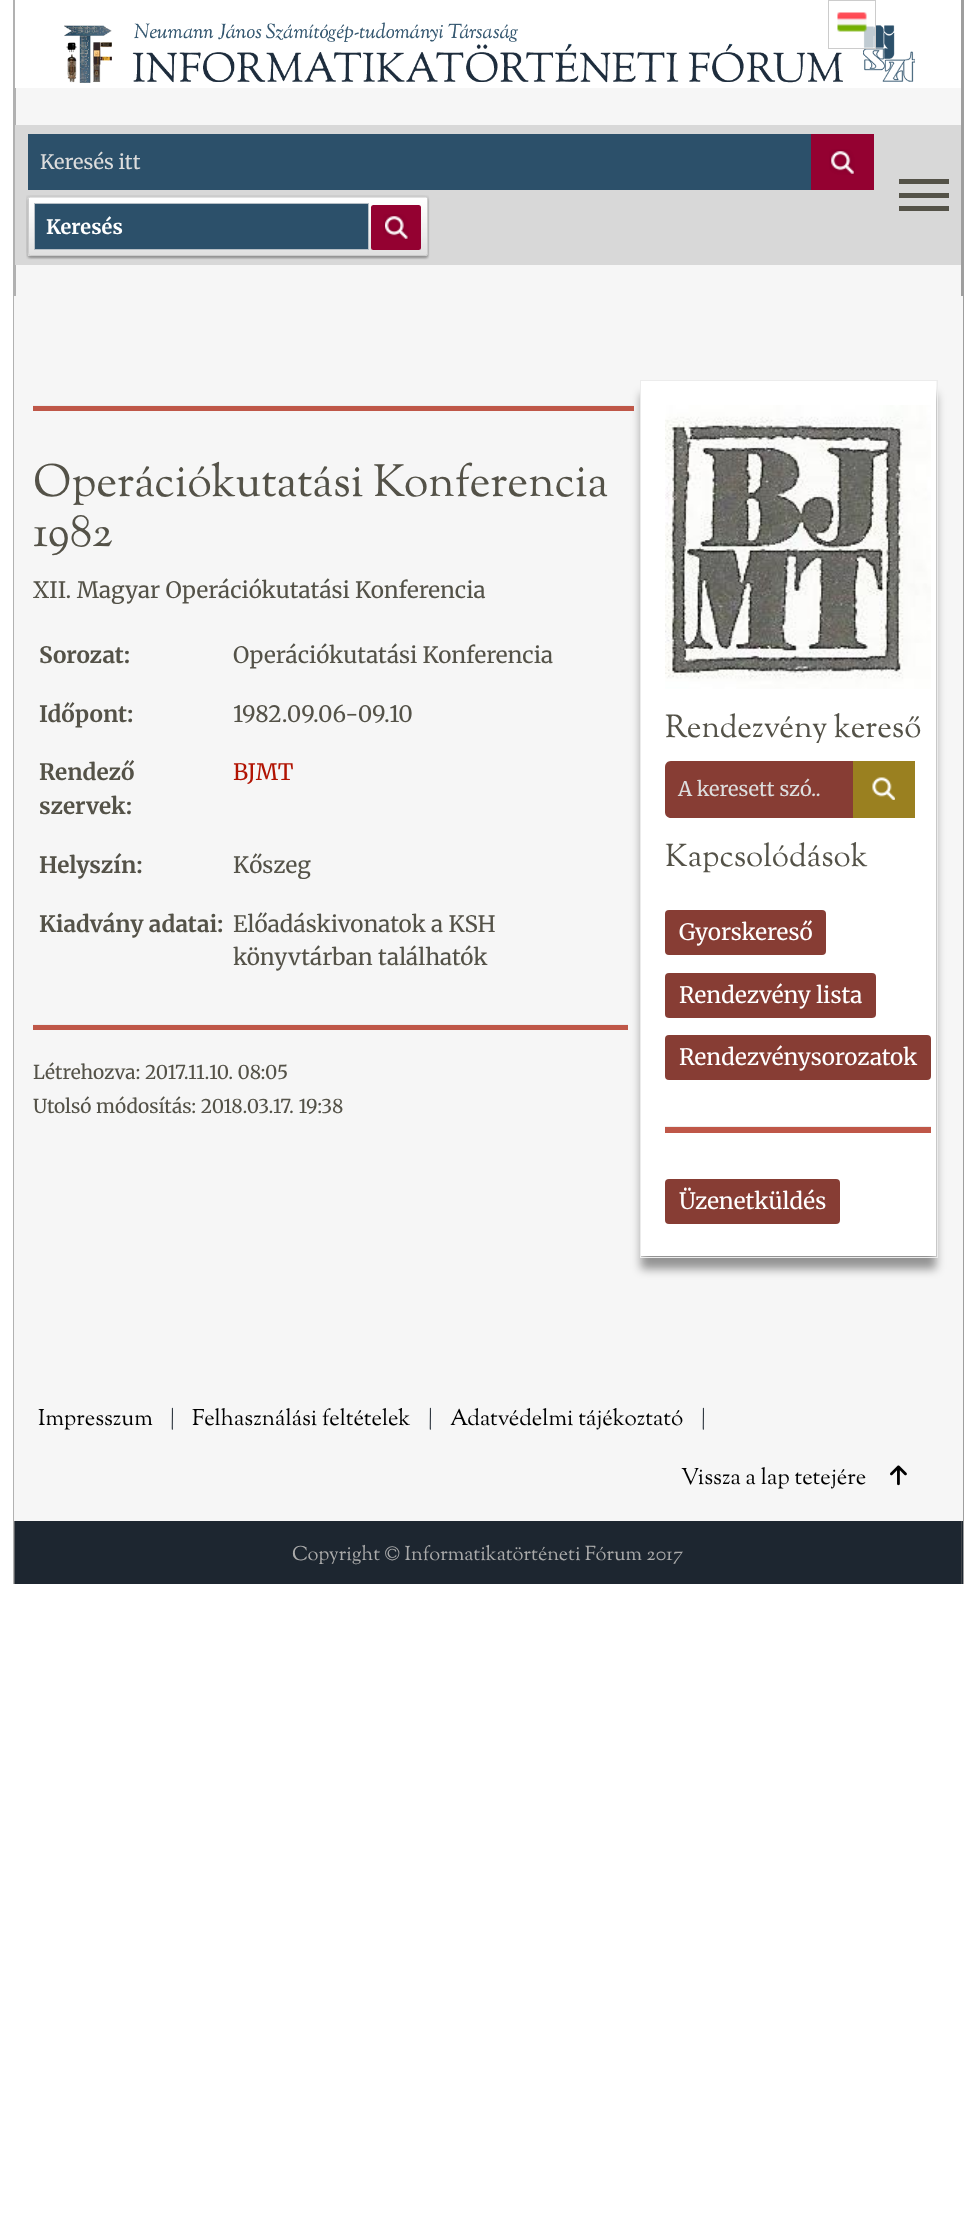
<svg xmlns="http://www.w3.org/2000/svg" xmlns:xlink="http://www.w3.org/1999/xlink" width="976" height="2219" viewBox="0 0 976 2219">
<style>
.cls-1{font:20px Merriweather;fill:#dddddd}
.cls-2{font:bold 20px Merriweather;fill:#ffffff}
.cls-3{font:45px Sorts Mill Goudy;fill:#545248}
.cls-4{font:22.5px Merriweather;fill:#545248}
.cls-5{font:bold 22.5px Merriweather;fill:#545248}
.cls-6{font:22.5px Merriweather;fill:#b11302}
.cls-7{font:19.1px Merriweather;fill:#545248}
.cls-8{font:31.5px Sorts Mill Goudy;fill:#545248}
.cls-9{font:22.5px Merriweather;fill:#ffffff}
.cls-10{font:22.5px Sorts Mill Goudy;fill:#000000}
.cls-11{font:22.5px Sorts Mill Goudy;fill:#1d2630}
.cls-12{font:20px Sorts Mill Goudy;fill:#aaaaaa}
</style>
<rect width="100%" height="100%" fill="#ffffff"/>
<image xlink:href="image1.png" x="64" y="22" width="851" height="61"/>
<rect fill="#ffffff" fill-opacity="0.7" x="863" y="26" width="12" height="22"/>
<rect fill="none" stroke="#cccccc" x="828.5" y="0.5" width="47" height="48"/>
<image xlink:href="image0.png" x="837" y="12" width="30" height="20"/>
<rect fill="#f6f6f6" x="16" y="88" width="945" height="208"/>
<rect fill="#9e9e9e" x="961" y="0" width="3" height="296"/>
<rect fill="#b1b1b1" x="13" y="0" width="3" height="296"/>
<rect fill="#ffffff" x="15" y="0" width="1" height="88"/>
<rect fill="#d8d8d8" x="15" y="125" width="946" height="140"/>
<rect fill="#2c506a" x="28" y="134" width="783" height="56"/>
<rect fill="#940131" x="811" y="134" width="63" height="56"/>
<image xlink:href="image2.png" x="829" y="149" width="26" height="26"/>
<rect fill="#999999" filter="blur(1px)" x="28" y="198" width="400" height="60" rx="2.5"/>
<rect fill="#d8d8d8" x="28" y="196" width="400" height="60" rx="2.5"/>
<image xlink:href="image3.png" x="26" y="195" width="403" height="64"/>
<rect fill="none" stroke="#cccccc" x="28.5" y="196.5" width="399" height="59" rx="2"/>
<rect fill="#2c506a" stroke="#b6bec5" x="34.5" y="203.5" width="334" height="46"/>
<rect fill="#940131" x="371" y="205" width="50" height="45" rx="2.5"/>
<image xlink:href="image4.png" x="383" y="214" width="26" height="26"/>
<rect fill="#545248" x="899" y="179" width="50" height="5"/>
<rect fill="#545248" x="899" y="193" width="50" height="5"/>
<rect fill="#545248" x="899" y="206" width="50" height="5"/>
<rect fill="#f6f6f6" x="14" y="296" width="949" height="1225"/>
<rect fill="#9e9e9e" x="963" y="296" width="1" height="1288"/>
<rect fill="#b1b1b1" x="13" y="296" width="1" height="1288"/>
<rect fill="#000000" fill-opacity="0.4" filter="blur(5px)" x="641" y="394" width="295" height="875"/>
<rect fill="#bf5748" x="33" y="406" width="601" height="5"/>
<rect fill="#eeeeee" x="33" y="405" width="601" height="1"/>
<rect fill="#bf5748" x="33" y="1025" width="595" height="5"/>
<rect fill="#eeeeee" x="33" y="1024" width="595" height="1"/>
<rect fill="none" stroke="#ececec" x="640.5" y="380.5" width="297" height="877"/>
<rect fill="#ffffff" x="641" y="381" width="295" height="875"/>
<image xlink:href="image5.png" x="665" y="405" width="266" height="284"/>
<path fill="#873d34" d="M671 761H853V818H671C667.5 818 665 815.5 665 812V767C665 763.5 667.5 761 671 761Z"/>
<rect fill="#9a8020" x="853" y="761" width="62" height="57"/>
<image xlink:href="image6.png" x="872" y="777" width="23" height="23"/>
<rect fill="#873d34" x="665" y="910" width="161" height="45" rx="4"/>
<rect fill="#873d34" x="665" y="973" width="211" height="45" rx="4"/>
<rect fill="#873d34" x="665" y="1035" width="266" height="45" rx="4"/>
<rect fill="#bf5748" x="665" y="1127" width="266" height="6"/>
<rect fill="#eeeeee" x="665" y="1126" width="266" height="1"/>
<rect fill="#873d34" x="665" y="1179" width="175" height="45" rx="4"/>
<image xlink:href="image7.png" x="890" y="1465" width="17" height="21"/>
<rect fill="#1d2630" x="15" y="1521" width="948" height="63"/>
<rect fill="#404449" x="961" y="1521" width="1" height="63"/>
<rect fill="#616468" x="14" y="1521" width="1" height="63"/>
<text class="cls-1" x="40" y="169">Keresés itt</text>
<text class="cls-2" x="46" y="234">Keresés</text>
<text class="cls-3"><tspan x="33" y="496">Operációkutatási Konferencia</tspan><tspan x="33" y="546">1982</tspan></text>
<text class="cls-4" x="33" y="598">XII. Magyar Operációkutatási Konferencia</text>
<text class="cls-5" x="39" y="663">Sorozat:</text>
<text class="cls-4" x="233" y="663">Operációkutatási Konferencia</text>
<text class="cls-5" x="39" y="722">Időpont:</text>
<text class="cls-4" x="233" y="722">1982.09.06-09.10</text>
<text class="cls-5"><tspan x="39" y="780">Rendező</tspan><tspan x="39" y="814">szervek:</tspan></text>
<text class="cls-6" x="233" y="780">BJMT</text>
<text class="cls-5" x="39" y="873">Helyszín:</text>
<text class="cls-4" x="233" y="873">Kőszeg</text>
<text class="cls-5" x="39" y="932">Kiadvány adatai:</text>
<text class="cls-4"><tspan x="233" y="932">Előadáskivonatok a KSH</tspan><tspan x="233" y="965">könyvtárban találhatók</tspan></text>
<text class="cls-7"><tspan x="33" y="1079">Létrehozva: 2017.11.10. 08:05</tspan><tspan x="33" y="1113">Utolsó módosítás: 2018.03.17. 19:38</tspan></text>
<text class="cls-8" x="665" y="737">Rendezvény kereső</text>
<text class="cls-1" x="678" y="796">A keresett szó..</text>
<text class="cls-8" x="665" y="866">Kapcsolódások</text>
<text class="cls-9" x="679" y="940">Gyorskereső</text>
<text class="cls-9" x="679" y="1003">Rendezvény lista</text>
<text class="cls-9" x="679" y="1065">Rendezvénysorozatok</text>
<text class="cls-9" x="679" y="1209">Üzenetküldés</text>
<text class="cls-10" x="38" y="1425">Impresszum</text>
<text class="cls-11" x="170" y="1425">|</text>
<text class="cls-10" x="192" y="1425">Felhasználási feltételek</text>
<text class="cls-11" x="428" y="1425">|</text>
<text class="cls-10" x="450" y="1425">Adatvédelmi tájékoztató</text>
<text class="cls-11" x="701" y="1425">|</text>
<text class="cls-10" x="681" y="1484">Vissza a lap tetejére</text>
<text class="cls-12" x="292" y="1560">Copyright © Informatikatörténeti Fórum 2017</text>
</svg>
